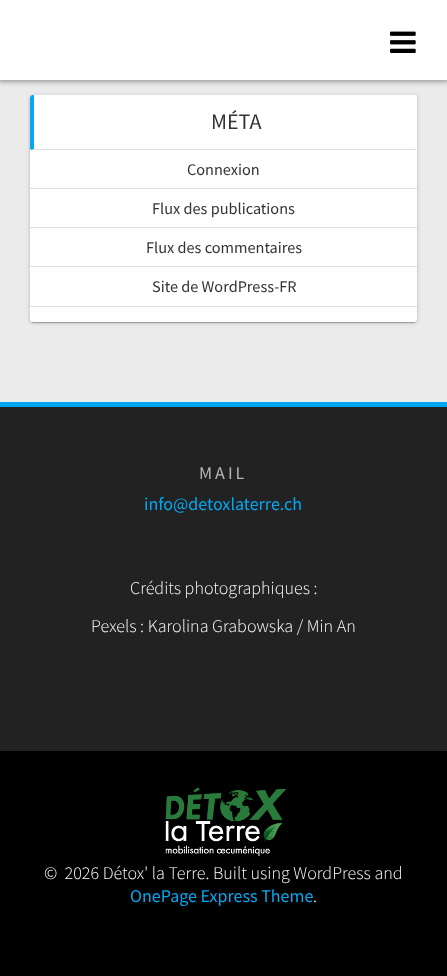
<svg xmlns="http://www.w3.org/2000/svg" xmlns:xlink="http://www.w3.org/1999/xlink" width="447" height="976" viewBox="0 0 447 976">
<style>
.cls-1{font:22px Source Sans Pro;fill:#333333}
.cls-2{font:16.25px Source Sans Pro;fill:#333333}
.cls-3{font:18px Source Sans Pro;letter-spacing:3px;fill:#b5b5b5}
.cls-4{font:18px Source Sans Pro;fill:#03a9f4}
.cls-5{font:300 18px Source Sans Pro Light;fill:#ffffff}
</style>
<rect width="100%" height="100%" fill="#ebebeb"/>
<rect fill="#000000" fill-opacity="0.33" filter="blur(2.5px)" x="-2" y="-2" width="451" height="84"/>
<rect fill="#ffffff" x="0" y="0" width="447" height="80"/>
<image xlink:href="image0.png" x="390" y="31" width="26" height="22"/>
<rect fill="#000000" fill-opacity="0.12" filter="blur(2.5px)" x="30" y="96" width="387" height="227" rx="3"/>
<rect fill="#000000" fill-opacity="0.2" filter="blur(0.5px)" x="32" y="100" width="383" height="223" rx="1"/>
<rect fill="#000000" fill-opacity="0.14" filter="blur(1px)" x="30" y="96" width="387" height="227" rx="3"/>
<rect fill="#ffffff" x="30" y="95" width="387" height="227" rx="3"/>
<path fill="#e0e0e0" d="M33 150H414C416 150 417 149 417 147C417 148 416 149 414 149H34L31 150Z"/>
<path fill="#03a8f4" d="M33 95H34V149L31 150C30 149 30 148 30 147V98C30 96 31 95 33 95Z"/>
<rect fill="#e0e0e0" x="30" y="188" width="387" height="1"/>
<rect fill="#e0e0e0" x="30" y="227" width="387" height="1"/>
<rect fill="#e0e0e0" x="30" y="266" width="387" height="1"/>
<rect fill="#e0e0e0" x="30" y="306" width="387" height="1"/>
<rect fill="#222222" x="0" y="407" width="447" height="344"/>
<rect fill="#03a8f4" x="0" y="402" width="447" height="5"/>
<rect fill="#000000" x="0" y="751" width="447" height="225"/>
<image xlink:href="image1.png" x="165" y="787" width="122" height="69"/>
<text class="cls-1" x="211" y="129">MÉTA</text>
<text class="cls-2" x="187" y="175">Connexion</text>
<text class="cls-2" x="152" y="214">Flux des publications</text>
<text class="cls-2" x="146" y="253">Flux des commentaires</text>
<text class="cls-2" x="152" y="292">Site de WordPress-FR</text>
<text class="cls-3" x="199" y="479">MAIL</text>
<text class="cls-4" x="144" y="510">info@detoxlaterre.ch</text>
<text class="cls-5" x="130" y="594">Crédits photographiques :</text>
<text class="cls-5" x="91" y="632">Pexels : Karolina Grabowska / Min An</text>
<text class="cls-5" xml:space="preserve" x="44" y="879">©  2026 Détox' la Terre. Built using WordPress and</text>
<text class="cls-4" x="130" y="902">OnePage Express Theme</text>
<text class="cls-5" x="313" y="902">.</text>
</svg>
